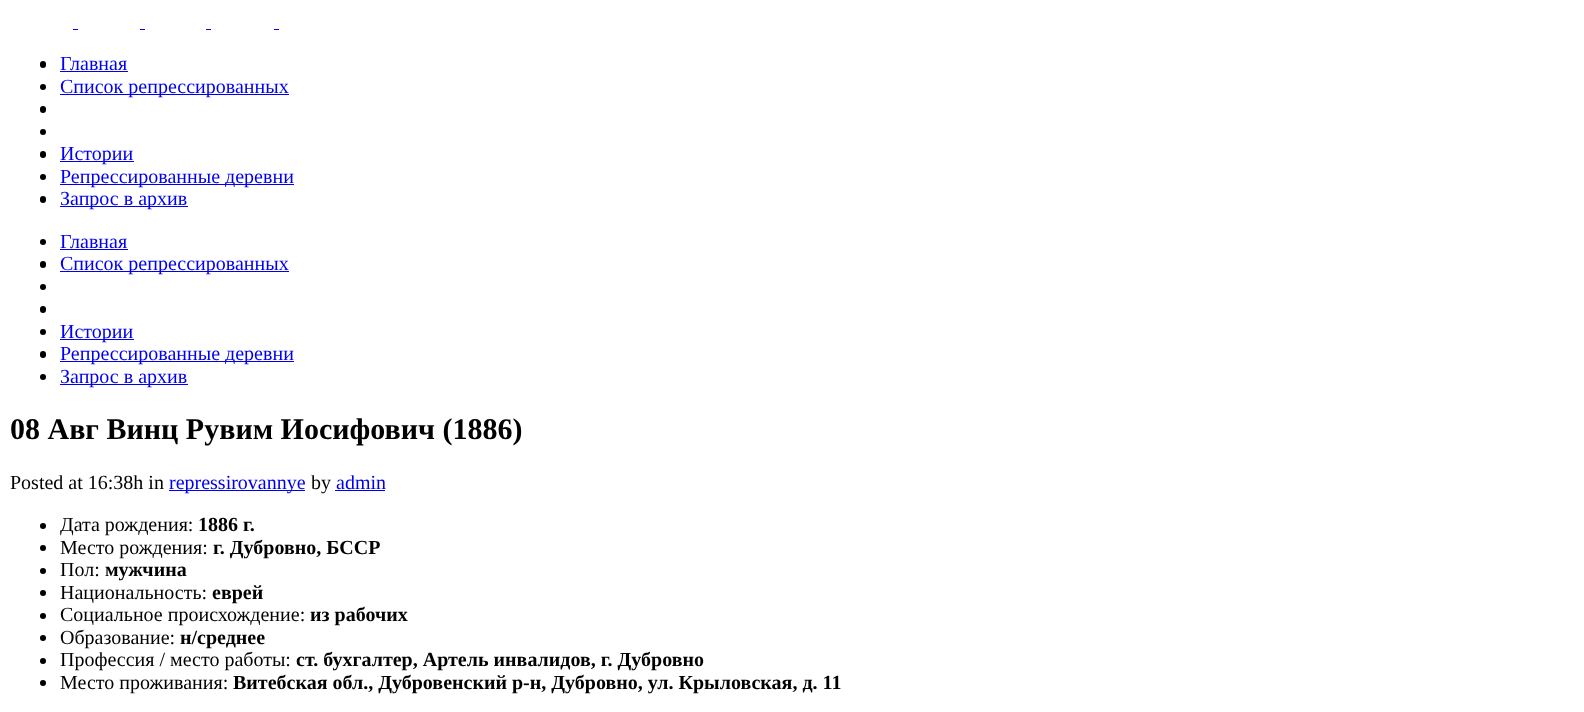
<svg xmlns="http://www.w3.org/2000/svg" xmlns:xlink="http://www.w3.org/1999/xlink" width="1584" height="712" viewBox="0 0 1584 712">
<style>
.cls-1{font:20px Liberation Serif;fill:#0000ee}
.cls-2{font:bold 30px Liberation Serif;fill:#000000}
.cls-3{font:20px Liberation Serif;fill:#000000}
.cls-4{font:bold 20px Liberation Serif;fill:#000000}
</style>
<rect width="100%" height="100%" fill="#ffffff"/>
<rect fill="#0000ee" x="73" y="29" width="5" height="1"/>
<rect fill="#0000ee" x="140" y="29" width="5" height="1"/>
<rect fill="#0000ee" x="206" y="29" width="5" height="1"/>
<rect fill="#0000ee" x="274" y="29" width="5" height="1"/>
<rect fill="#000000" x="40" y="61" width="6" height="7" rx="3"/>
<rect fill="#0000ee" x="60" y="71" width="68" height="1"/>
<circle fill="#000000" cx="43" cy="87" r="3"/>
<rect fill="#0000ee" x="60" y="94" width="229" height="1"/>
<rect fill="#000000" x="40" y="106" width="6" height="7" rx="3"/>
<circle fill="#000000" cx="43" cy="132" r="3"/>
<rect fill="#000000" x="40" y="151" width="6" height="7" rx="3"/>
<rect fill="#0000ee" x="60" y="161" width="74" height="1"/>
<circle fill="#000000" cx="43" cy="177" r="3"/>
<rect fill="#0000ee" x="60" y="184" width="234" height="1"/>
<rect fill="#000000" x="40" y="196" width="6" height="7" rx="3"/>
<rect fill="#0000ee" x="60" y="206" width="128" height="1"/>
<circle fill="#000000" cx="43" cy="242" r="3"/>
<rect fill="#0000ee" x="60" y="249" width="68" height="1"/>
<rect fill="#000000" x="40" y="261" width="6" height="7" rx="3"/>
<rect fill="#0000ee" x="60" y="271" width="229" height="1"/>
<circle fill="#000000" cx="43" cy="287" r="3"/>
<rect fill="#000000" x="40" y="306" width="6" height="7" rx="3"/>
<circle fill="#000000" cx="43" cy="332" r="3"/>
<rect fill="#0000ee" x="60" y="339" width="74" height="1"/>
<rect fill="#000000" x="40" y="351" width="6" height="7" rx="3"/>
<rect fill="#0000ee" x="60" y="361" width="234" height="1"/>
<circle fill="#000000" cx="43" cy="377" r="3"/>
<rect fill="#0000ee" x="60" y="384" width="128" height="1"/>
<rect fill="#0000ee" x="169" y="490" width="136" height="1"/>
<rect fill="#0000ee" x="335" y="490" width="50" height="1"/>
<circle fill="#000000" cx="43" cy="526" r="3"/>
<circle fill="#000000" cx="43" cy="548" r="3"/>
<circle fill="#000000" cx="43" cy="571" r="3"/>
<circle fill="#000000" cx="43" cy="593" r="3"/>
<circle fill="#000000" cx="43" cy="616" r="3"/>
<circle fill="#000000" cx="43" cy="638" r="3"/>
<circle fill="#000000" cx="43" cy="661" r="3"/>
<circle fill="#000000" cx="43" cy="683" r="3"/>
<text class="cls-1"><tspan x="60" y="70">Главная</tspan><tspan x="60" y="93">Список репрессированных</tspan></text>
<text class="cls-1"><tspan x="60" y="160">Истории</tspan><tspan x="60" y="183">Репрессированные деревни</tspan><tspan x="60" y="205">Запрос в архив</tspan></text>
<text class="cls-1"><tspan x="60" y="248">Главная</tspan><tspan x="60" y="270">Список репрессированных</tspan></text>
<text class="cls-1"><tspan x="60" y="338">Истории</tspan><tspan x="60" y="360">Репрессированные деревни</tspan><tspan x="60" y="383">Запрос в архив</tspan></text>
<text class="cls-2" x="10" y="439">08 Авг Винц Рувим Иосифович (1886)</text>
<text class="cls-3" x="10" y="489">Posted at 16:38h in</text>
<text class="cls-1" x="169" y="489">repressirovannye</text>
<text class="cls-3" x="311" y="489">by</text>
<text class="cls-1" x="336" y="489">admin</text>
<text class="cls-3" x="60" y="531">Дата рождения:</text>
<text class="cls-4" x="198" y="531">1886 г.</text>
<text class="cls-3" x="60" y="554">Место рождения:</text>
<text class="cls-4" x="213" y="554">г. Дубровно, БССР</text>
<text class="cls-3" x="60" y="576">Пол:</text>
<text class="cls-4" x="105" y="576">мужчина</text>
<text class="cls-3" x="60" y="599">Национальность:</text>
<text class="cls-4" x="212" y="599">еврей</text>
<text class="cls-3" x="60" y="621">Социальное происхождение:</text>
<text class="cls-4" x="310" y="621">из рабочих</text>
<text class="cls-3" x="60" y="644">Образование:</text>
<text class="cls-4" x="180" y="644">н/среднее</text>
<text class="cls-3" x="60" y="666">Профессия / место работы:</text>
<text class="cls-4" x="296" y="666">ст. бухгалтер, Артель инвалидов, г. Дубровно</text>
<text class="cls-3" x="60" y="689">Место проживания:</text>
<text class="cls-4" x="233" y="689">Витебская обл., Дубровенский р-н, Дубровно, ул. Крыловская, д. 11</text>
</svg>
